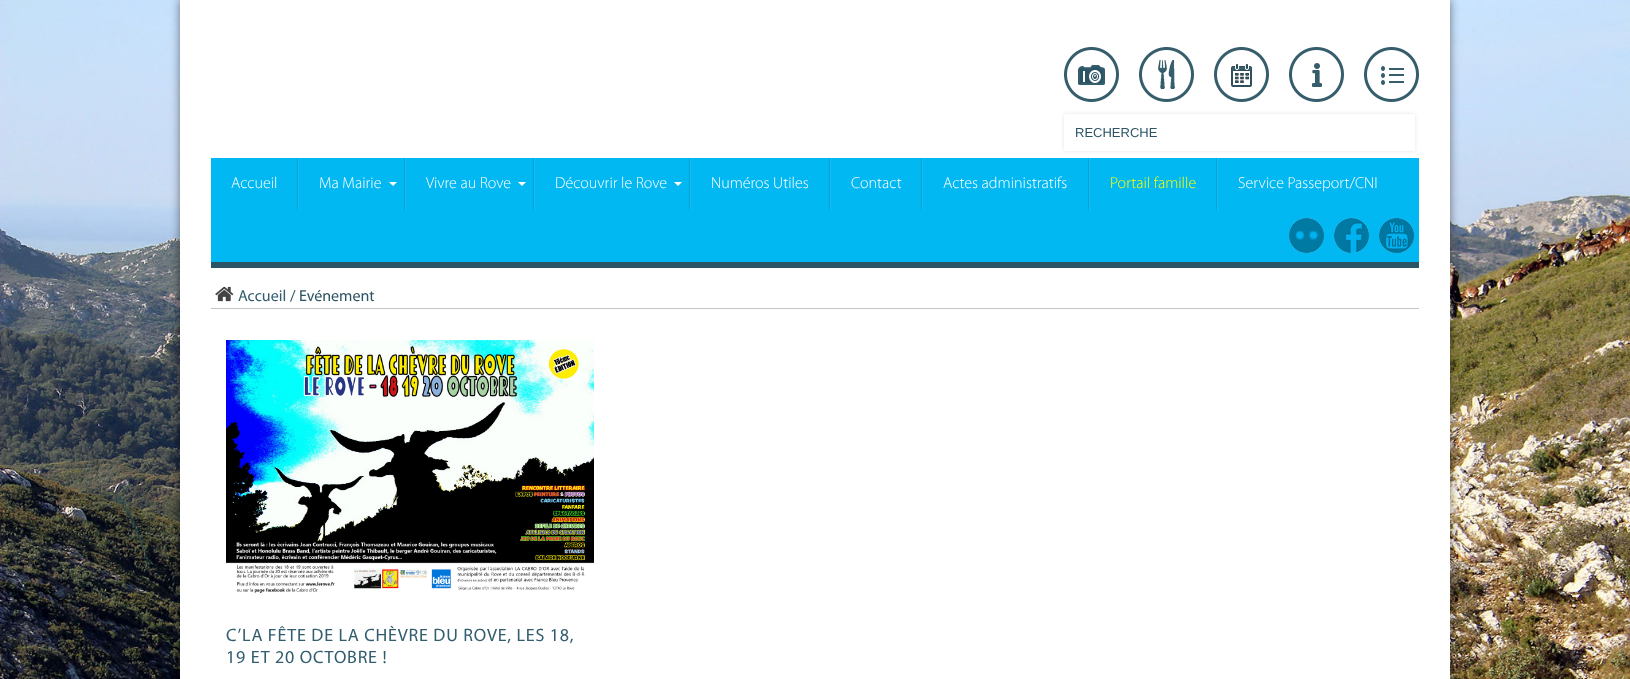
<svg xmlns="http://www.w3.org/2000/svg" xmlns:xlink="http://www.w3.org/1999/xlink" width="1630" height="679" viewBox="0 0 1630 679">
<style>
.cls-1{font:13px Liberation Sans;fill:#2b5464}
.cls-2{font:300 16px Myriad;fill:#ffffff}
.cls-3{font:300 16px Myriad;fill:#ffff00}
.cls-4{font:16px Myriad;fill:#325d6f}
.cls-5{font:16px Myriad;fill:#2b5464}
.cls-6{font:18px Myriad;letter-spacing:0.8px;fill:#325d6f}
</style>
<rect width="100%" height="100%" fill="#ffffff"/>
<image xlink:href="image0.png" x="0" y="0" width="1630" height="679"/>
<rect fill="#000000" fill-opacity="0.5" filter="blur(5px)" x="180" y="0" width="1270" height="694"/>
<rect fill="#ffffff" x="180" y="0" width="1270" height="679"/>
<image xlink:href="image1.png" x="1064" y="47" width="55" height="55"/>
<image xlink:href="image2.png" x="1139" y="47" width="55" height="55"/>
<image xlink:href="image3.png" x="1214" y="47" width="55" height="55"/>
<image xlink:href="image4.png" x="1289" y="47" width="55" height="55"/>
<image xlink:href="image5.png" x="1364" y="47" width="55" height="55"/>
<rect fill="#000000" fill-opacity="0.1" filter="blur(2px)" x="1064" y="114" width="351" height="37" rx="2"/>
<rect fill="#ffffff" x="1064" y="114" width="351" height="37" rx="2"/>
<rect fill="#02b8f2" x="211" y="158" width="1208" height="104"/>
<rect fill="#2b5464" x="211" y="262" width="1208" height="6"/>
<rect fill="#02a4d8" x="297" y="158" width="1" height="52"/>
<rect fill="#19bdf4" x="298" y="158" width="1" height="52"/>
<path fill="#ffffff" d="M389 182H397L393 186Z"/>
<rect fill="#02a4d8" x="404" y="158" width="1" height="52"/>
<rect fill="#19bdf4" x="405" y="158" width="1" height="52"/>
<path fill="#ffffff" d="M518 182H526L522 186Z"/>
<rect fill="#02a4d8" x="533" y="158" width="1" height="52"/>
<rect fill="#19bdf4" x="534" y="158" width="1" height="52"/>
<path fill="#ffffff" d="M674 182H682L678 186Z"/>
<rect fill="#02a4d8" x="689" y="158" width="1" height="52"/>
<rect fill="#19bdf4" x="690" y="158" width="1" height="52"/>
<rect fill="#02a4d8" x="829" y="158" width="1" height="52"/>
<rect fill="#19bdf4" x="830" y="158" width="1" height="52"/>
<rect fill="#02a4d8" x="921" y="158" width="1" height="52"/>
<rect fill="#19bdf4" x="922" y="158" width="1" height="52"/>
<rect fill="#02a4d8" x="1088" y="158" width="1" height="52"/>
<rect fill="#19bdf4" x="1089" y="158" width="1" height="52"/>
<rect fill="#02a4d8" x="1216" y="158" width="1" height="52"/>
<rect fill="#19bdf4" x="1217" y="158" width="1" height="52"/>
<image xlink:href="image6.png" x="1289" y="218" width="35" height="35"/>
<image xlink:href="image7.png" x="1334" y="218" width="35" height="35"/>
<image xlink:href="image8.png" x="1379" y="218" width="35" height="35"/>
<rect fill="#c5c4c4" x="211" y="308" width="1208" height="1"/>
<image xlink:href="image9.png" x="215" y="286" width="19" height="16"/>
<image xlink:href="image10.png" x="226" y="340" width="368" height="253"/>
<text class="cls-1" x="1075" y="137">RECHERCHE</text>
<text class="cls-2" x="231" y="188">Accueil</text>
<text class="cls-2" x="319" y="188">Ma Mairie</text>
<text class="cls-2" x="426" y="188">Vivre au Rove</text>
<text class="cls-2" x="555" y="188">Découvrir le Rove</text>
<text class="cls-2" x="711" y="188">Numéros Utiles</text>
<text class="cls-2" x="851" y="188">Contact</text>
<text class="cls-2" x="943" y="188">Actes administratifs</text>
<text class="cls-3" x="1110" y="188">Portail famille</text>
<text class="cls-2" x="1238" y="188">Service Passeport/CNI</text>
<text class="cls-4" x="238" y="301">Accueil</text>
<text class="cls-5" x="290" y="301">/ Evénement</text>
<text class="cls-6"><tspan x="226" y="641">C’LA FÊTE DE LA CHÈVRE DU ROVE, LES 18,</tspan><tspan x="226" y="663">19 ET 20 OCTOBRE !</tspan></text>
</svg>
